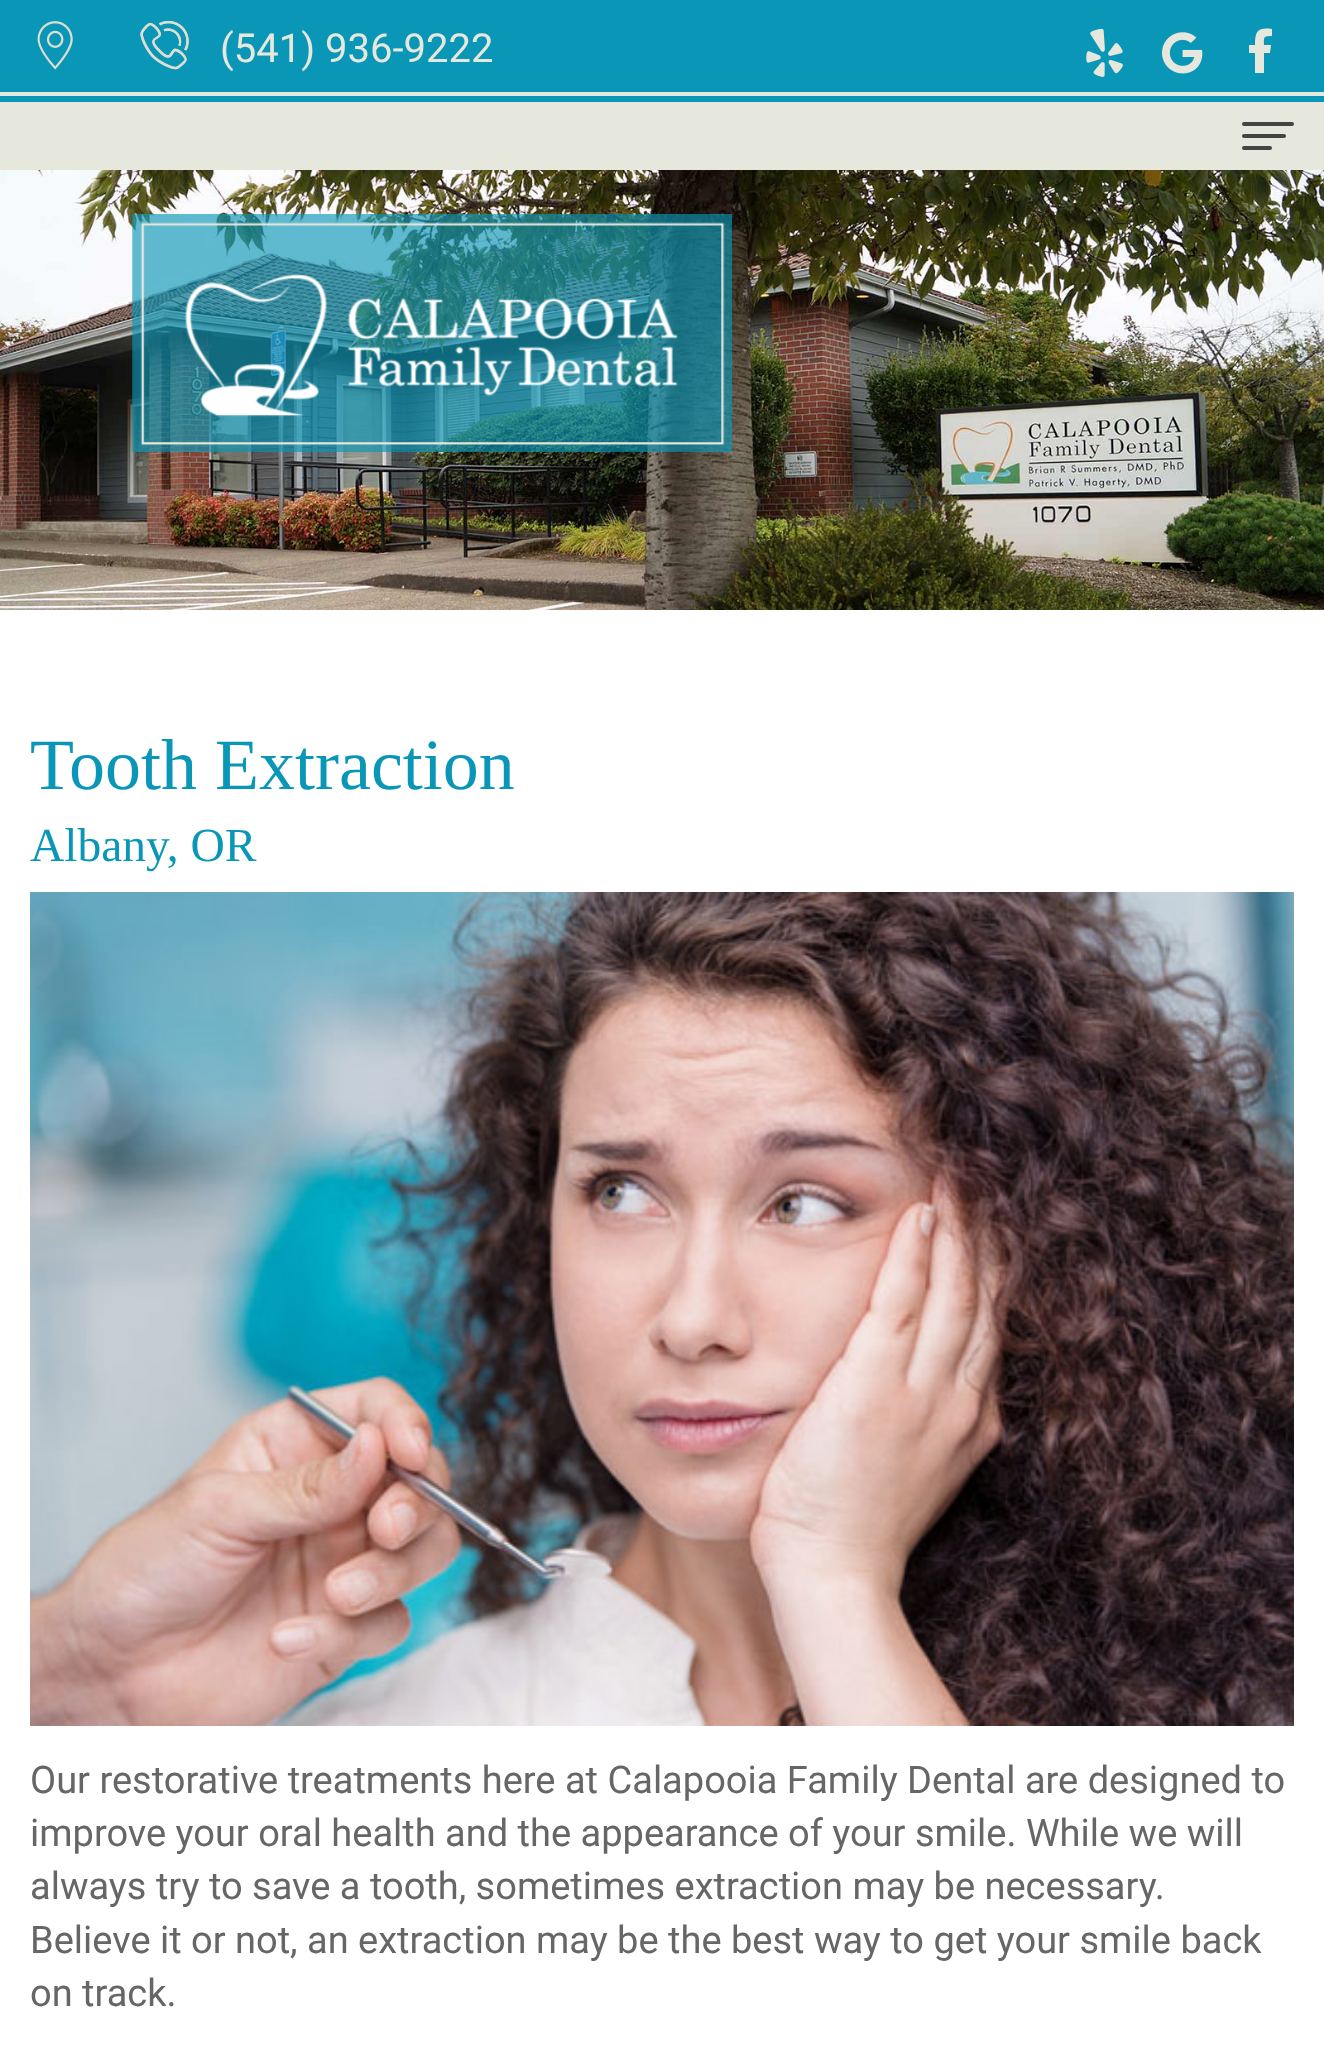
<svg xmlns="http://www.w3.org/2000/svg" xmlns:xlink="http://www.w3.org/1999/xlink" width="1324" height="2066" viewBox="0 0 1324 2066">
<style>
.cls-1{font:40px Roboto;fill:#e7e8dd}
.cls-2{font:72px Liberation Serif;fill:#0a97b7}
.cls-3{font:47.5px Liberation Serif;fill:#0a97b7}
.cls-4{font:38px Roboto;fill:#666666}
</style>
<rect width="100%" height="100%" fill="#ffffff"/>
<rect fill="#e7e8dd" x="0" y="102" width="1324" height="68"/>
<rect fill="#0a97b7" x="0" y="0" width="1324" height="102"/>
<image xlink:href="image0.png" x="37" y="21" width="36" height="49"/>
<image xlink:href="image1.png" x="140" y="20" width="49" height="50"/>
<image xlink:href="image2.png" x="1086" y="28" width="37" height="49"/>
<image xlink:href="image3.png" x="1162" y="32" width="41" height="42"/>
<path fill="#e7e8dd" d="M1272 29V36C1263 36 1264 37 1264 45H1271L1270 53H1264V73H1255V53H1249V45H1255C1255 32 1257 27 1272 29Z"/>
<rect fill="#e7e8dd" x="0" y="92" width="1324" height="4"/>
<rect fill="#444444" x="1242" y="122" width="52" height="4" rx="2"/>
<rect fill="#444444" x="1242" y="134" width="44" height="4" rx="2"/>
<rect fill="#444444" x="1242" y="146" width="30" height="4" rx="2"/>
<image xlink:href="image4.png" x="0" y="170" width="1324" height="440"/>
<image xlink:href="image5.png" x="132" y="214" width="600" height="238"/>
<image xlink:href="image6.png" x="30" y="892" width="1264" height="834"/>
<text class="cls-1" x="220" y="62">(541) 936-9222</text>
<text class="cls-2" x="30" y="789">Tooth Extraction</text>
<text class="cls-3" x="30" y="861">Albany, OR</text>
<text class="cls-4"><tspan x="30" y="1793">Our restorative treatments here at Calapooia Family Dental are designed to</tspan><tspan x="30" y="1846">improve your oral health and the appearance of your smile. While we will</tspan><tspan x="30" y="1899">always try to save a tooth, sometimes extraction may be necessary.</tspan><tspan x="30" y="1953">Believe it or not, an extraction may be the best way to get your smile back</tspan><tspan x="30" y="2006">on track.</tspan></text>
</svg>
